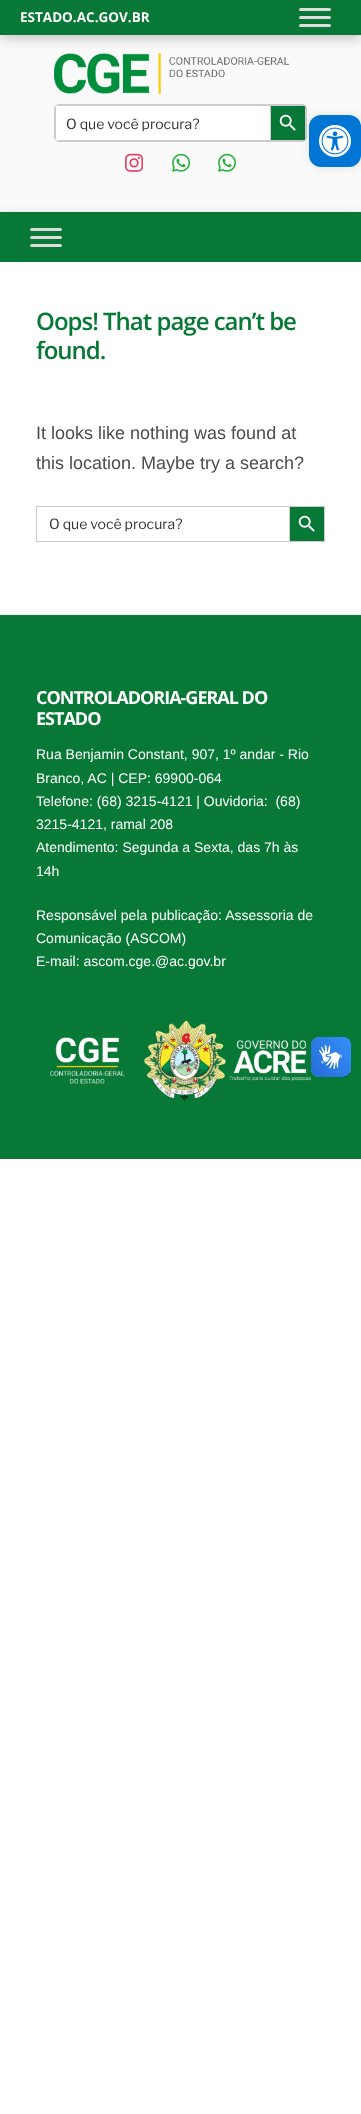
<svg xmlns="http://www.w3.org/2000/svg" xmlns:xlink="http://www.w3.org/1999/xlink" width="361" height="2114" viewBox="0 0 361 2114">
<style>
.cls-1{font:bold 13.5px Open Sans;fill:#ffffff}
.cls-2{font:100 14px Libre Franklin;fill:#333333}
.cls-3{font:600 24px Open Sans;letter-spacing:-1px;fill:#077835}
.cls-4{font:18px Liberation Sans;fill:#4d4d4d}
.cls-5{font:bold 18px Open Sans;letter-spacing:-1px;fill:#ffffff}
.cls-6{font:14px Liberation Sans;fill:#ffffff}
</style>
<defs>
<clipPath id="clip1"><rect x="55" y="105" width="251" height="36" rx="4"/></clipPath>
</defs>
<rect width="100%" height="100%" fill="#ffffff"/>
<rect fill="#fafafa" x="0" y="35" width="361" height="177"/>
<rect fill="#000000" fill-opacity="0.2" filter="blur(6px)" x="0" y="4" width="361" height="35"/>
<rect fill="#077835" x="0" y="0" width="361" height="35"/>
<rect fill="#dddddd" x="299" y="8" width="32" height="3" rx="1.5"/>
<rect fill="#dddddd" x="299" y="16" width="32" height="3" rx="1.5"/>
<rect fill="#dddddd" x="299" y="24" width="32" height="3" rx="1.5"/>
<image xlink:href="image0.png" x="54" y="53" width="235" height="41"/>
<rect fill="none" stroke="#cccccc" x="54.5" y="104.5" width="252" height="37" rx="4.5"/>
<path fill="#ffffff" d="M59 105H270V141H59C57 141 55 139 55 137V109C55 107 57 105 59 105Z"/>
<g clip-path="url(#clip1)">
<rect fill="#cccccc" x="55" y="105" width="215" height="1"/>
<rect fill="#cccccc" x="55" y="140" width="215" height="1"/>
<rect fill="#cccccc" x="55" y="105" width="1" height="36"/>
</g>
<path fill="#077835" d="M270 105H302C304 105 306 107 306 109V137C306 139 304 141 302 141H270Z"/>
<path fill="#cccccc" fill-rule="evenodd" d="M270 105V141H302C303 141 304 140.5 304.5 140H271V106H304.5C304 105.5 303 105 302 105ZM306 109C306 108 305.5 107 305 106.5V139.5C305.5 139 306 138 306 137Z"/>
<image xlink:href="image1.png" x="279" y="114" width="17" height="17"/>
<image xlink:href="image2.png" x="125" y="153" width="18" height="19"/>
<image xlink:href="image3.png" x="172" y="153" width="18" height="19"/>
<image xlink:href="image3.png" x="218" y="153" width="18" height="19"/>
<rect fill="#000000" fill-opacity="0.2" filter="blur(6px)" x="0" y="216" width="361" height="50"/>
<rect fill="#077835" x="0" y="212" width="361" height="50"/>
<rect fill="#dddddd" x="30" y="228" width="32" height="3" rx="1.5"/>
<rect fill="#dddddd" x="30" y="236" width="32" height="3" rx="1.5"/>
<rect fill="#dddddd" x="30" y="244" width="32" height="3" rx="1.5"/>
<rect fill="#000000" fill-opacity="0.1" filter="blur(5px)" x="309" y="115" width="52" height="52" rx="12"/>
<rect fill="#0075d4" x="309" y="115" width="52" height="52" rx="12"/>
<image xlink:href="image4.png" x="319" y="125" width="32" height="32"/>
<rect fill="#ffffff" x="0" y="262" width="361" height="14"/>
<rect fill="#cccccc" x="36" y="506" width="253" height="1"/>
<rect fill="#cccccc" x="36" y="541" width="253" height="1"/>
<rect fill="#cccccc" x="36" y="506" width="1" height="36"/>
<rect fill="#077835" stroke="#cccccc" x="289.5" y="506.5" width="35" height="35"/>
<image xlink:href="image1.png" x="298" y="515" width="17" height="17"/>
<rect fill="#077835" x="0" y="615" width="361" height="544"/>
<rect fill="#eeeeee" x="0" y="614" width="361" height="1"/>
<image xlink:href="image5.png" x="50" y="1020" width="261" height="81"/>
<image xlink:href="image6.png" x="311" y="1037" width="40" height="40"/>
<image xlink:href="image7.png" x="311" y="1037" width="40" height="40"/>
<text class="cls-1" x="20" y="22">ESTADO.AC.GOV.BR</text>
<text class="cls-2" x="66" y="129">O que você procura?</text>
<text class="cls-3"><tspan x="36" y="330">Oops! That page can’t be</tspan><tspan x="36" y="359">found.</tspan></text>
<text class="cls-4"><tspan x="36" y="439">It looks like nothing was found at</tspan><tspan x="36" y="469">this location. Maybe try a search?</tspan></text>
<text class="cls-2" x="49" y="529">O que você procura?</text>
<text class="cls-5"><tspan x="36" y="704">CONTROLADORIA-GERAL DO</tspan><tspan x="36" y="725">ESTADO</tspan></text>
<text class="cls-6" xml:space="preserve"><tspan x="36" y="759">Rua Benjamin Constant, 907, 1º andar - Rio</tspan><tspan x="36" y="783">Branco, AC | CEP: 69900-064</tspan><tspan x="36" y="806">Telefone: (68) 3215-4121 | Ouvidoria:  (68)</tspan><tspan x="36" y="829">3215-4121, ramal 208</tspan><tspan x="36" y="852">Atendimento: Segunda a Sexta, das 7h às</tspan><tspan x="36" y="876">14h</tspan></text>
<text class="cls-6"><tspan x="36" y="920">Responsável pela publicação: Assessoria de</tspan><tspan x="36" y="943">Comunicação (ASCOM)</tspan><tspan x="36" y="966">E-mail: ascom.cge.@ac.gov.br</tspan></text>
</svg>
